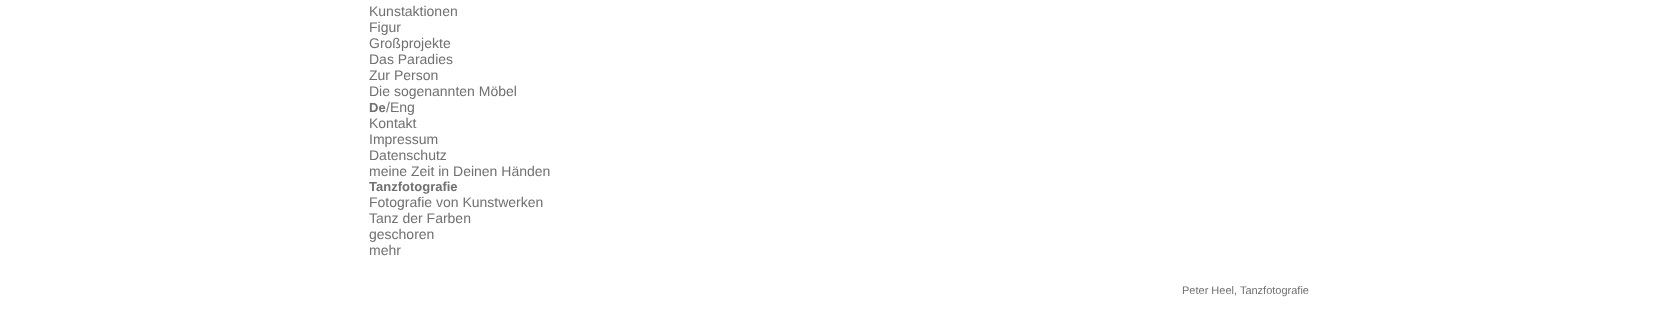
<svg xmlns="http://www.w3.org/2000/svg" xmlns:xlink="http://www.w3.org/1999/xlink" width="1678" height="330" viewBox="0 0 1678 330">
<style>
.cls-1{font:14px Liberation Sans;fill:#707070}
.cls-2{font:bold 13px Liberation Sans;fill:#707070}
.cls-3{font:11px Liberation Sans;fill:#707070}
</style>
<rect width="100%" height="100%" fill="#ffffff"/>
<text class="cls-1"><tspan x="369" y="16">Kunstaktionen</tspan><tspan x="369" y="32">Figur</tspan><tspan x="369" y="48">Großprojekte</tspan><tspan x="369" y="64">Das Paradies</tspan><tspan x="369" y="80">Zur Person</tspan><tspan x="369" y="96">Die sogenannten Möbel</tspan></text>
<text class="cls-2" x="369" y="112">De</text>
<text class="cls-1" x="386" y="112">/Eng</text>
<text class="cls-1"><tspan x="369" y="128">Kontakt</tspan><tspan x="369" y="144">Impressum</tspan><tspan x="369" y="160">Datenschutz</tspan><tspan x="369" y="176">meine Zeit in Deinen Händen</tspan></text>
<text class="cls-2" x="369" y="191">Tanzfotografie</text>
<text class="cls-1"><tspan x="369" y="207">Fotografie von Kunstwerken</tspan><tspan x="369" y="223">Tanz der Farben</tspan><tspan x="369" y="239">geschoren</tspan><tspan x="369" y="255">mehr</tspan></text>
<text class="cls-3" x="1182" y="294">Peter Heel, Tanzfotografie</text>
</svg>
